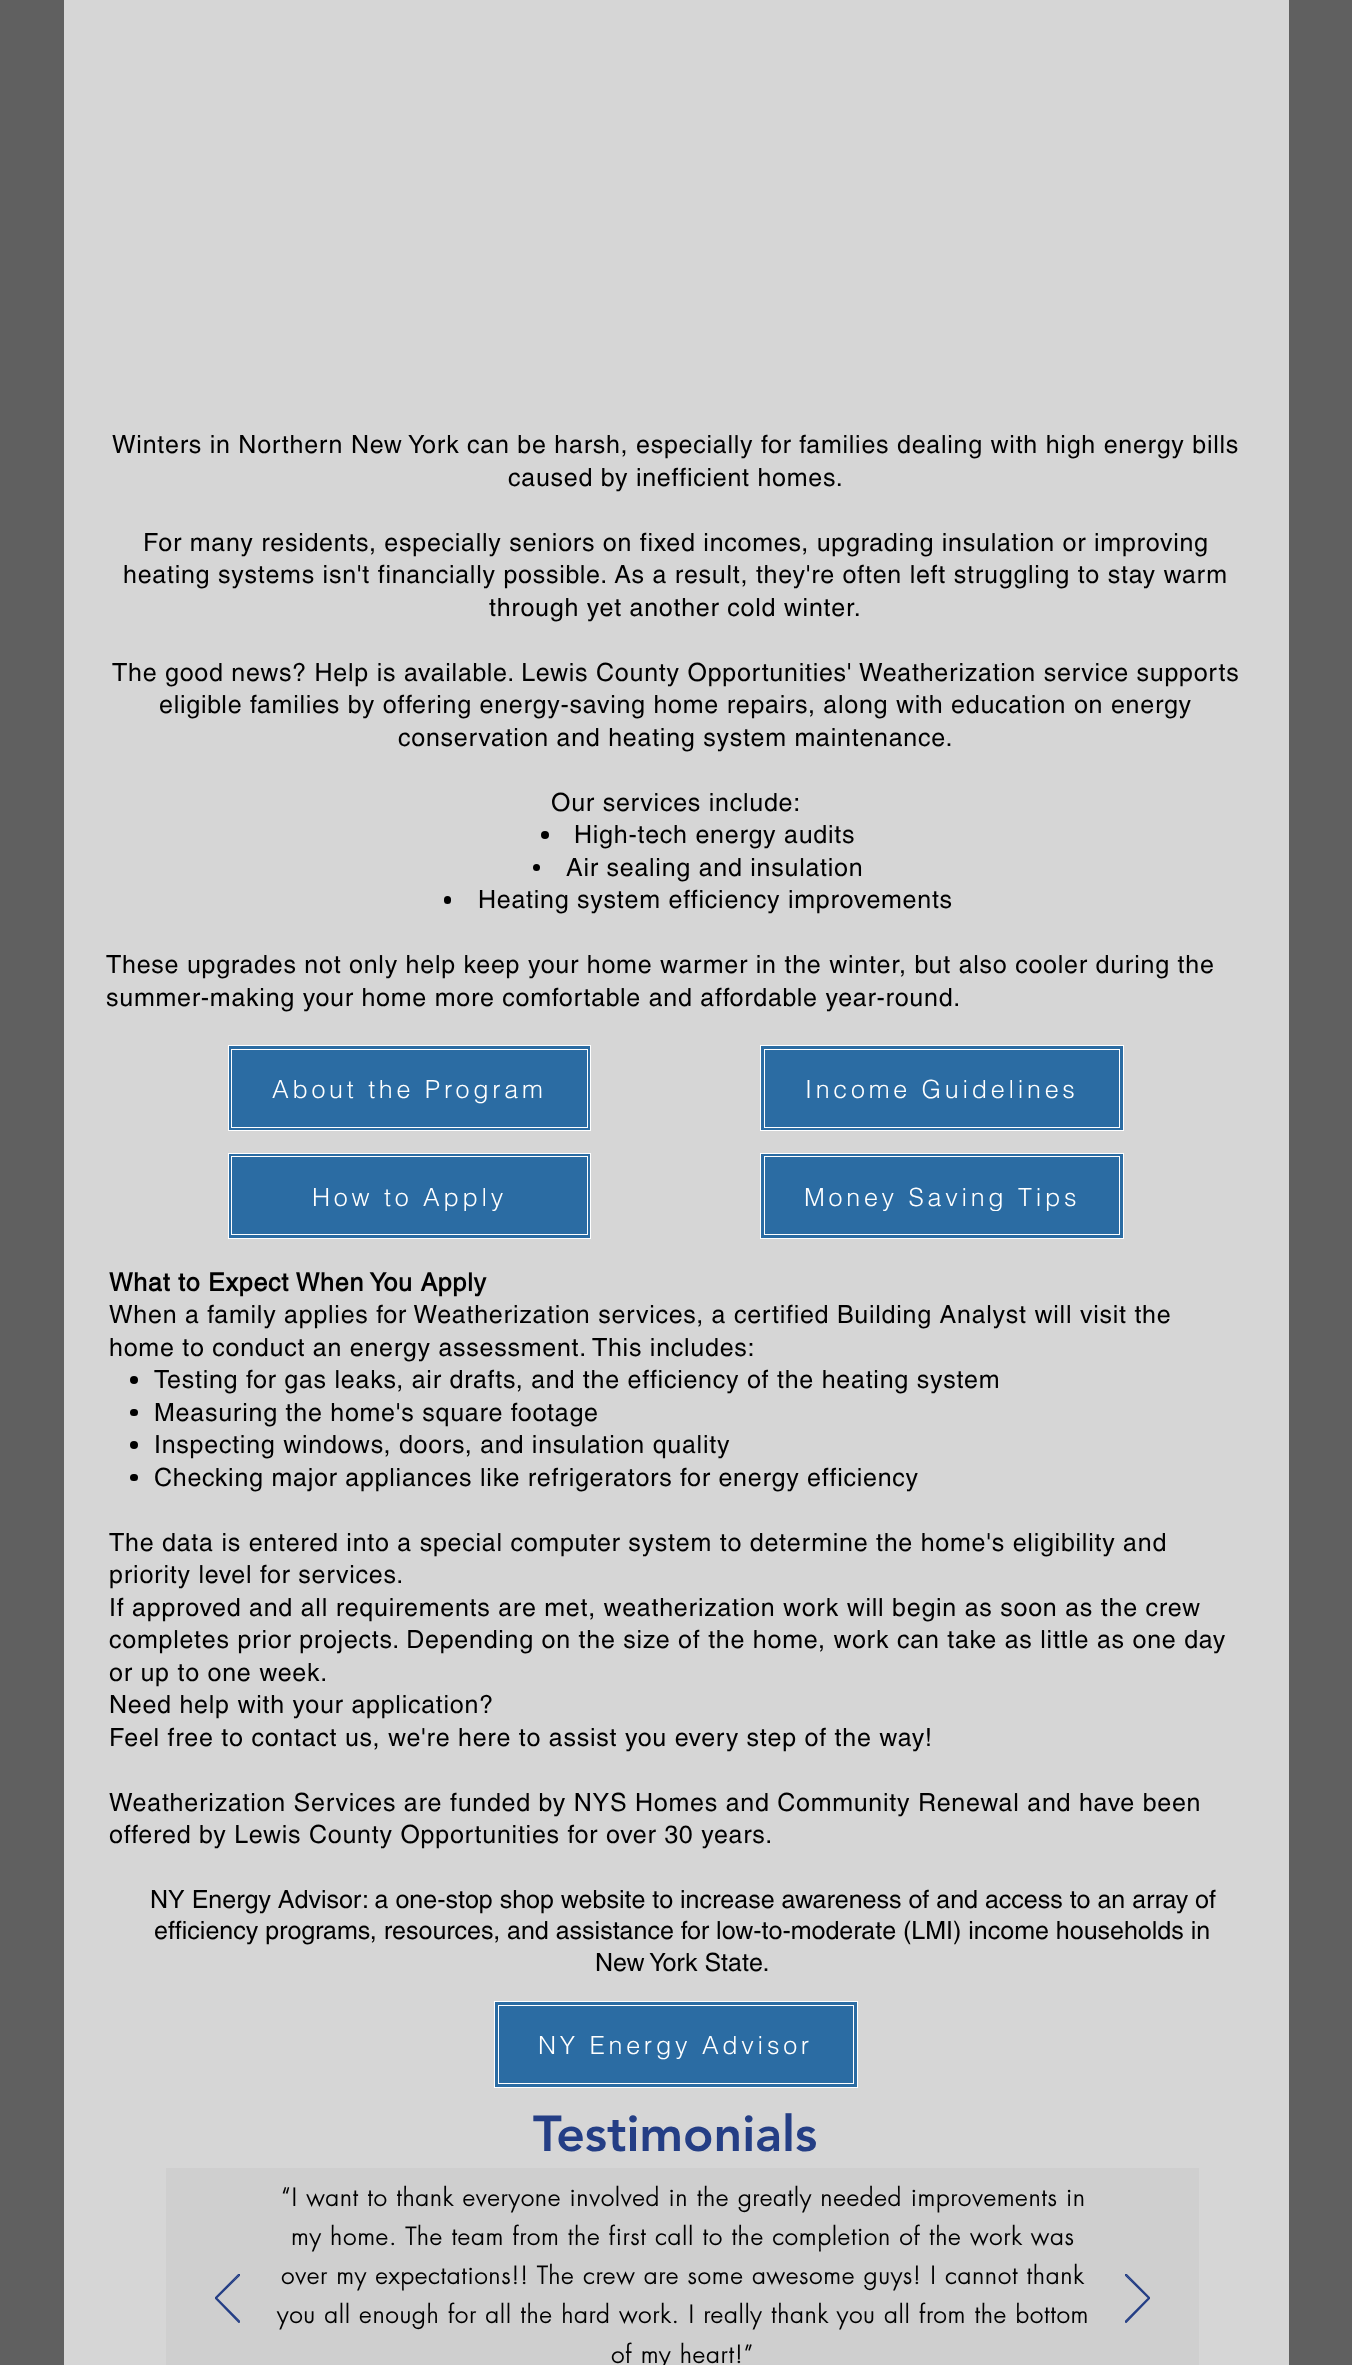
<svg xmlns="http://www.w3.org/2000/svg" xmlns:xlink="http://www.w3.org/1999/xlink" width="1352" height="2365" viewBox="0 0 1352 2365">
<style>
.cls-1{font:25px helvetica;letter-spacing:0.75px;fill:#000000}
.cls-2{font:300 25px helvetica;letter-spacing:3.75px;fill:#ffffff}
.cls-3{font:bold 25px helvetica;letter-spacing:0.75px;fill:#000000}
.cls-4{font:25px helvetica;fill:#000000}
.cls-5{font:900 50px 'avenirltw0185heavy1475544';fill:#243e85}
.cls-6{font:bold 23.75px futura;letter-spacing:1.2px;fill:#000000}
</style>
<defs>
<clipPath id="clip1"><rect x="215" y="2274" width="25" height="49"/></clipPath>
<clipPath id="clip2"><rect x="1125" y="2274" width="25" height="49"/></clipPath>
<clipPath id="clip3"><rect x="311" y="1180" width="197" height="31"/></clipPath>
<clipPath id="clip4"><rect x="804" y="1180" width="276" height="31"/></clipPath>
</defs>
<rect width="100%" height="100%" fill="#606060"/>
<rect fill="#d6d6d6" x="64" y="0" width="1225" height="2365"/>
<circle fill="#000000" cx="545" cy="835" r="4"/>
<circle fill="#000000" cx="536.5" cy="867.5" r="3.5"/>
<rect fill="#000000" x="444" y="896" width="7" height="8" rx="3.5"/>
<rect fill="#2b6ca3" stroke="#ffffff" x="228.5" y="1045.5" width="362" height="85"/>
<rect fill="none" stroke="#ffffff" x="231.5" y="1049.5" width="356" height="78"/>
<rect fill="#2b6ca3" stroke="#ffffff" x="760.5" y="1045.5" width="363" height="85"/>
<rect fill="none" stroke="#ffffff" x="764.5" y="1049.5" width="355" height="78"/>
<rect fill="#2b6ca3" stroke="#ffffff" x="228.5" y="1153.5" width="362" height="85"/>
<rect fill="none" stroke="#ffffff" x="231.5" y="1156.5" width="356" height="78"/>
<rect fill="#2b6ca3" stroke="#ffffff" x="760.5" y="1153.5" width="363" height="85"/>
<rect fill="none" stroke="#ffffff" x="764.5" y="1156.5" width="355" height="78"/>
<circle fill="#000000" cx="134" cy="1380" r="4"/>
<rect fill="#000000" x="130" y="1409" width="8" height="7" rx="3.5"/>
<circle fill="#000000" cx="134" cy="1445" r="4"/>
<rect fill="#000000" x="130" y="1474" width="8" height="7" rx="3.5"/>
<rect fill="#2b6ca3" stroke="#ffffff" x="494.5" y="2001.5" width="363" height="86"/>
<rect fill="none" stroke="#ffffff" x="498.5" y="2005.5" width="355" height="78"/>
<rect fill="#cfcfcf" x="166" y="2168" width="1033" height="197"/>
<g clip-path="url(#clip1)">
<path fill="none" stroke="#243e85" stroke-width="1.2" d="M239 2322.5L215 2298L239 2274L240 2275L216.5 2298L240 2321.5Z"/>
</g>
<g clip-path="url(#clip2)">
<path fill="none" stroke="#243e85" stroke-width="1.2" d="M1126 2322.5L1150 2298L1126 2274L1125 2275L1148.5 2298L1125 2321.5Z"/>
</g>
<text class="cls-1" x="112" y="453">Winters in Northern New York can be harsh, especially for families dealing with high energy bills</text>
<text class="cls-1" x="508" y="486">caused by inefficient homes.</text>
<text class="cls-1" x="143" y="551">For many residents, especially seniors on fixed incomes, upgrading insulation or improving</text>
<text class="cls-1" x="123" y="583">heating systems isn't financially possible. As a result, they're often left struggling to stay warm</text>
<text class="cls-1" x="489" y="616">through yet another cold winter.</text>
<text class="cls-1" x="112" y="681">The good news? Help is available. Lewis County Opportunities' Weatherization service supports</text>
<text class="cls-1" x="159" y="713">eligible families by offering energy-saving home repairs, along with education on energy</text>
<text class="cls-1" x="398" y="746">conservation and heating system maintenance.</text>
<text class="cls-1" x="551" y="811">Our services include:</text>
<text class="cls-1" x="574" y="843">High-tech energy audits</text>
<text class="cls-1" x="566" y="876">Air sealing and insulation</text>
<text class="cls-1" x="478" y="908">Heating system efficiency improvements</text>
<text class="cls-1"><tspan x="106" y="973">These upgrades not only help keep your home warmer in the winter, but also cooler during the</tspan><tspan x="106" y="1006">summer-making your home more comfortable and affordable year-round.</tspan></text>
<text class="cls-2" x="272" y="1098">About the Program</text>
<text class="cls-2" x="805" y="1098">Income Guidelines</text>
<g clip-path="url(#clip3)">
<text class="cls-2" x="312" y="1206">How to Apply</text>
</g>
<g clip-path="url(#clip4)">
<text class="cls-2" x="804" y="1206">Money Saving Tips</text>
</g>
<text class="cls-3" x="109" y="1291">What to Expect When You Apply</text>
<text class="cls-1"><tspan x="109" y="1323">When a family applies for Weatherization services, a certified Building Analyst will visit the</tspan><tspan x="109" y="1356">home to conduct an energy assessment. This includes:</tspan></text>
<text class="cls-1"><tspan x="154" y="1388">Testing for gas leaks, air drafts, and the efficiency of the heating system</tspan><tspan x="154" y="1421">Measuring the home's square footage</tspan><tspan x="154" y="1453">Inspecting windows, doors, and insulation quality</tspan><tspan x="154" y="1486">Checking major appliances like refrigerators for energy efficiency</tspan></text>
<text class="cls-1"><tspan x="109" y="1551">The data is entered into a special computer system to determine the home's eligibility and</tspan><tspan x="109" y="1583">priority level for services.</tspan><tspan x="109" y="1616">If approved and all requirements are met, weatherization work will begin as soon as the crew</tspan><tspan x="109" y="1648">completes prior projects. Depending on the size of the home, work can take as little as one day</tspan><tspan x="109" y="1681">or up to one week.</tspan><tspan x="109" y="1713">Need help with your application?</tspan><tspan x="109" y="1746">Feel free to contact us, we're here to assist you every step of the way!</tspan></text>
<text class="cls-1"><tspan x="109" y="1811">Weatherization Services are funded by NYS Homes and Community Renewal and have been</tspan><tspan x="109" y="1843">offered by Lewis County Opportunities for over 30 years.</tspan></text>
<text class="cls-4" x="150" y="1908">NY Energy Advisor: a one-stop shop website to increase awareness of and access to an array of</text>
<text class="cls-4" x="154" y="1939">efficiency programs, resources, and assistance for low-to-moderate (LMI) income households in</text>
<text class="cls-4" x="595" y="1971">New York State.</text>
<text class="cls-2" x="538" y="2054">NY Energy Advisor</text>
<text class="cls-5" x="533" y="2151">Testimonials</text>
<text class="cls-6" x="281" y="2206">“I want to thank everyone involved in the greatly needed improvements in</text>
<text class="cls-6" x="291" y="2245">my home. The team from the first call to the completion of the work was</text>
<text class="cls-6" x="281" y="2284">over my expectations!! The crew are some awesome guys! I cannot thank</text>
<text class="cls-6" x="277" y="2323">you all enough for all the hard work. I really thank you all from the bottom</text>
<text class="cls-6" x="611" y="2363">of my heart!”</text>
</svg>
